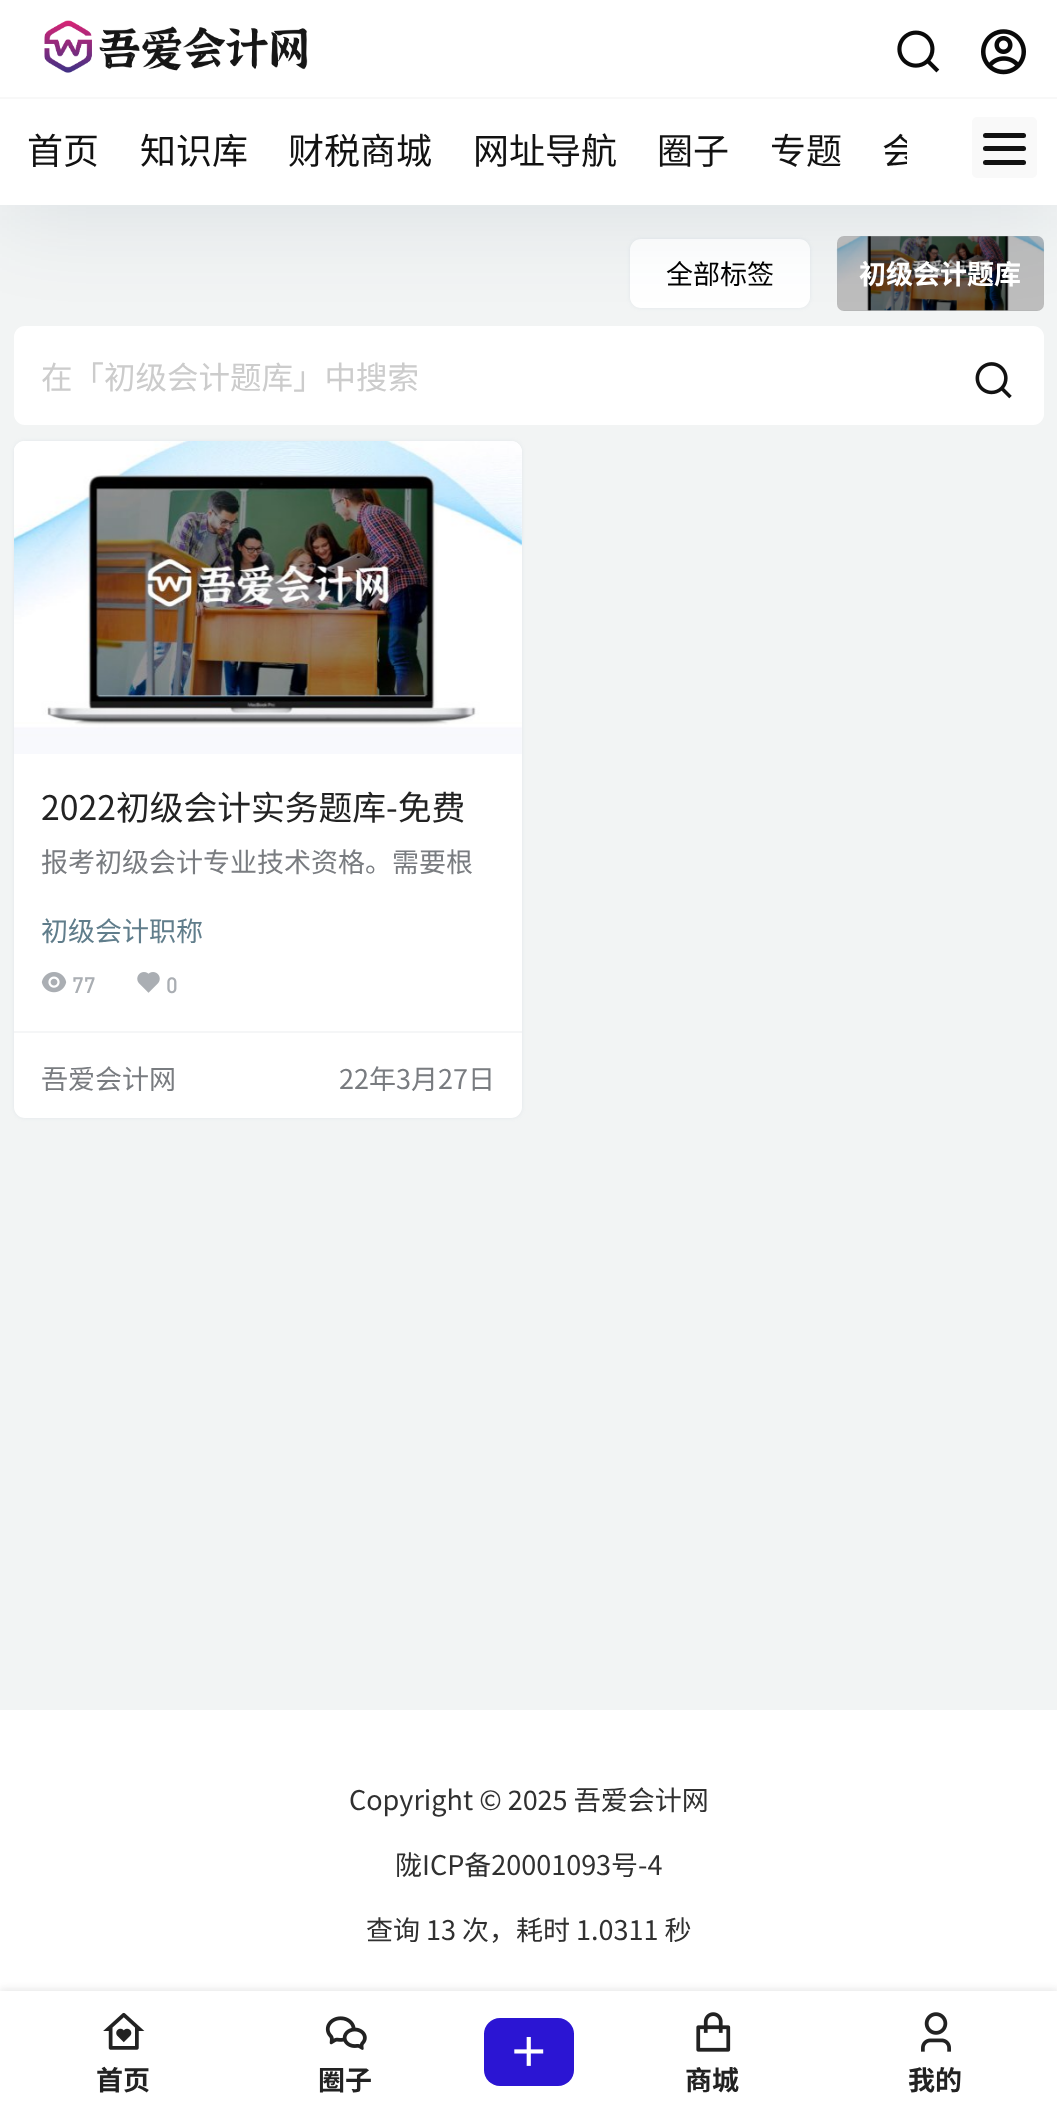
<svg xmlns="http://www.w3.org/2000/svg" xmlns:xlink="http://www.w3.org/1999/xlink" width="1057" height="2115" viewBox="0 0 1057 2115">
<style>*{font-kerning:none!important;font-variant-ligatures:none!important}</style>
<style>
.cls-1{font:36px Noto Sans CJK SC;fill:#121212}
.cls-2{font:27px Noto Sans CJK SC;fill:#000000}
.cls-3{font:bold 27px Noto Sans CJK SC;fill:#ffffff}
.cls-4{font:31.5px Noto Sans CJK SC;fill:#cccccc}
.cls-5{font:33.75px Noto Sans CJK SC;fill:#222222}
.cls-6{font:27px Noto Sans CJK SC;fill:#797c80}
.cls-7{font:27px Noto Sans CJK SC;fill:#607d8b}
.cls-8{font:500 22px DIN;fill:#aaaeb3}
.cls-9{font:27px Noto Sans CJK SC;fill:#303030}
.cls-10{font:bold 27px Noto Sans CJK SC;fill:#222222}
</style>
<defs>
<clipPath id="clip1"><rect x="27" y="110" width="880" height="95"/></clipPath>
<clipPath id="clip2"><rect x="41" y="1060" width="135" height="31"/></clipPath>
<clipPath id="clip3"><rect x="340" y="1060" width="155" height="31"/></clipPath>
</defs>
<rect width="100%" height="100%" fill="#f2f4f4"/>
<rect fill="#627c99" fill-opacity="0.1" filter="blur(2px)" x="630" y="239" width="180" height="69" rx="11"/>
<rect fill="#ffffff" x="630" y="239" width="180" height="69" rx="11"/>
<image xlink:href="image3.png" x="836" y="236" width="209" height="75"/>
<rect fill="#000000" fill-opacity="0.26" x="837" y="236" width="207" height="75" rx="7"/>
<rect fill="#ffffff" x="14" y="326" width="1030" height="99" rx="11"/>
<rect fill="#113a5d" fill-opacity="0.1" filter="blur(45px)" x="0" y="11" width="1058" height="205"/>
<rect fill="#ffffff" x="0" y="0" width="1057" height="205"/>
<rect fill="#f8f8f8" x="0" y="97" width="1057" height="2"/>
<image xlink:href="image0.png" x="44" y="20" width="264" height="53"/>
<image xlink:href="image1.png" x="897" y="30" width="43" height="43"/>
<image xlink:href="image2.png" x="981" y="29" width="45" height="46"/>
<rect fill="#f9f9f9" x="972" y="117" width="65" height="61" rx="5"/>
<rect fill="#121212" x="983" y="133" width="43" height="5" rx="2.5"/>
<rect fill="#121212" x="983" y="146" width="43" height="5" rx="2.5"/>
<rect fill="#121212" x="983" y="160" width="43" height="5" rx="2.5"/>
<image xlink:href="image4.png" x="975" y="362" width="37" height="37"/>
<rect fill="#627c99" fill-opacity="0.1" filter="blur(2px)" x="14" y="441" width="508" height="677" rx="11"/>
<rect fill="#ffffff" x="14" y="441" width="508" height="677" rx="11"/>
<image xlink:href="image5.png" x="14" y="441" width="508" height="313"/>
<image xlink:href="image6.png" x="41" y="972" width="26" height="21"/>
<image xlink:href="image7.png" x="137" y="972" width="23" height="21"/>
<rect fill="#f5f6f7" x="14" y="1031" width="508" height="2"/>
<rect fill="#ffffff" x="0" y="1710" width="1057" height="281"/>
<rect fill="#1a1a1a" fill-opacity="0.1" filter="blur(3.5px)" x="0" y="1989" width="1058" height="124"/>
<rect fill="#ffffff" x="0" y="1991" width="1057" height="124"/>
<image xlink:href="image8.png" x="103" y="2012" width="42" height="38"/>
<image xlink:href="image9.png" x="325" y="2016" width="42" height="34"/>
<rect fill="#2b15d3" x="484" y="2018" width="90" height="68" rx="16"/>
<image xlink:href="image10.png" x="514" y="2037" width="30" height="29"/>
<image xlink:href="image11.png" x="696" y="2012" width="35" height="40"/>
<image xlink:href="image12.png" x="921" y="2012" width="30" height="40"/>
<text class="cls-1" x="27" y="164">首页</text>
<text class="cls-1" x="140" y="164">知识库</text>
<text class="cls-1" x="288" y="164">财税商城</text>
<text class="cls-1" x="473" y="164">网址导航</text>
<text class="cls-1" x="657" y="164">圈子</text>
<text class="cls-1" x="770" y="164">专题</text>
<g clip-path="url(#clip1)">
<text class="cls-1" x="882" y="164">会</text>
</g>
<text class="cls-2" x="666" y="284">全部标签</text>
<text class="cls-3" x="859" y="284">初级会计题库</text>
<text class="cls-4" x="41" y="389">在「初级会计题库」中搜索</text>
<text class="cls-5" x="41" y="820">2022初级会计实务题库-免费</text>
<text class="cls-6" x="41" y="872">报考初级会计专业技术资格。需要根</text>
<text class="cls-7" x="41" y="941">初级会计职称</text>
<text class="cls-8" x="72" y="993">77</text>
<text class="cls-8" x="166" y="993">0</text>
<g clip-path="url(#clip2)">
<text class="cls-6" x="41" y="1089">吾爱会计网</text>
</g>
<g clip-path="url(#clip3)">
<text class="cls-6" x="339" y="1089">22年3月27日</text>
</g>
<text class="cls-9" x="349" y="1810">Copyright © 2025 吾爱会计网</text>
<text class="cls-9" x="395" y="1875">陇ICP备20001093号-4</text>
<text class="cls-9" x="366" y="1940">查询 13 次，耗时 1.0311 秒</text>
<text class="cls-10" x="96" y="2090">首页</text>
<text class="cls-10" x="318" y="2090">圈子</text>
<text class="cls-10" x="685" y="2090">商城</text>
<text class="cls-10" x="908" y="2090">我的</text>
</svg>
